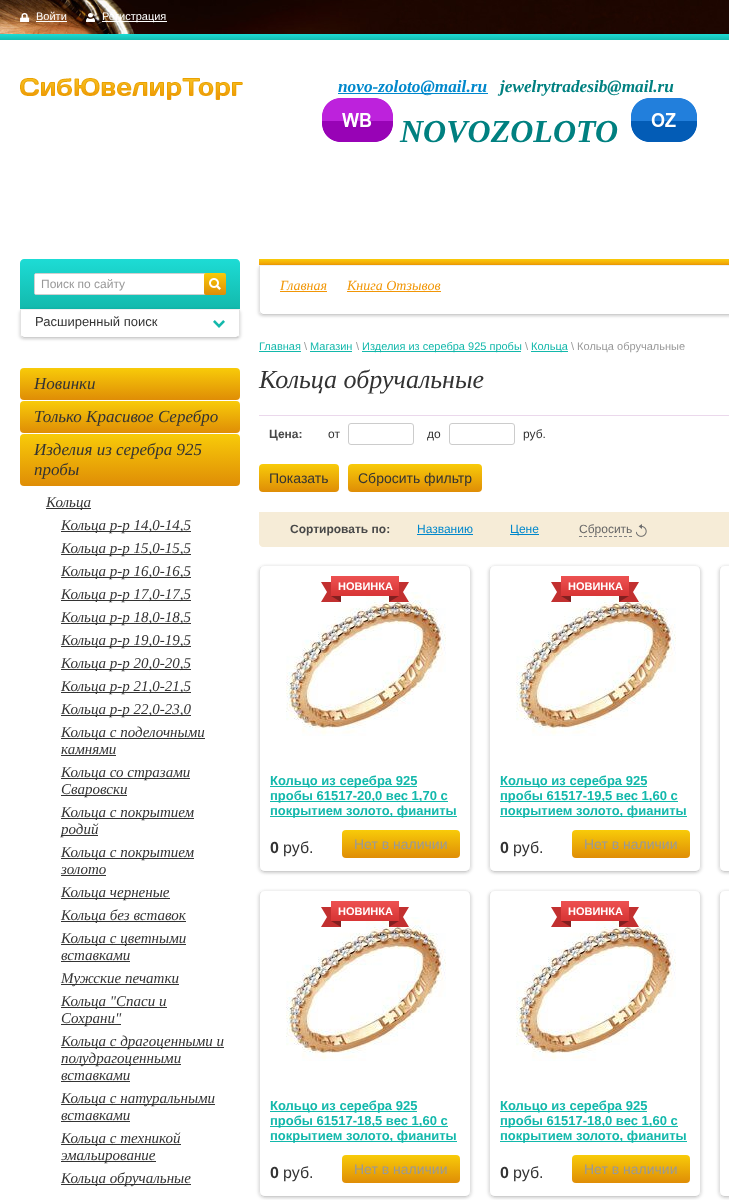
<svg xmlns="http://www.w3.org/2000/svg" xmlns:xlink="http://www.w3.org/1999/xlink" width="729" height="1200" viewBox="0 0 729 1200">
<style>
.cls-1{font:11px Liberation Sans;fill:#ffffff}
.cls-2{font:italic bold 17.25px Liberation Serif;fill:#0088cc}
.cls-3{font:italic bold 17.25px Liberation Serif;fill:#008080}
.cls-4{font:italic bold 32px Liberation Serif;fill:#008080}
.cls-5{font:12px Liberation Sans;fill:#999999}
.cls-6{font:13px Liberation Sans;fill:#333333}
.cls-7{font:italic 17px Liberation Serif;fill:#333333}
.cls-8{font:italic 15px Liberation Serif;fill:#333333}
.cls-9{font:italic 14px Liberation Serif;fill:#f19606}
.cls-10{font:11px Liberation Sans;fill:#13b8ab}
.cls-11{font:11px Liberation Sans;fill:#999999}
.cls-12{font:italic 26px Liberation Serif;fill:#333333}
.cls-13{font:bold 12px Liberation Sans;fill:#484848}
.cls-14{font:12px Liberation Sans;fill:#333333}
.cls-15{font:14px Liberation Sans;fill:#333333}
.cls-16{font:12px Liberation Sans;fill:#0088cc}
.cls-17{font:12px Liberation Sans;fill:#666666}
.cls-18{font:bold 11px Liberation Sans;fill:#ffffff}
.cls-19{font:bold 13px Liberation Sans;fill:#13b8ab}
.cls-20{font:bold 16px Liberation Sans;fill:#333333}
.cls-21{font:16px Liberation Sans;fill:#333333}
.cls-22{font:14px Liberation Sans;fill:#999999}
</style>
<defs>
<linearGradient id="g1" gradientUnits="userSpaceOnUse" x1="490" y1="34" x2="490" y2="40"><stop offset="0" stop-color="#1ddcd5"/><stop offset="1" stop-color="#14bcb0"/></linearGradient>
<linearGradient id="g2" gradientUnits="userSpaceOnUse" x1="130" y1="259" x2="130" y2="309"><stop offset="0" stop-color="#1ddcd5"/><stop offset="1" stop-color="#13b9ac"/></linearGradient>
<linearGradient id="g3" gradientUnits="userSpaceOnUse" x1="215" y1="273" x2="215" y2="295"><stop offset="0" stop-color="#f8cb09"/><stop offset="1" stop-color="#df8d06"/></linearGradient>
<clipPath id="clip1"><path d="M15 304H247V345H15ZM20 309H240V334C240 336 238 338 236 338H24C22 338 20 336 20 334Z" clip-rule="evenodd"/></clipPath>
<clipPath id="clip2"><path d="M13 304H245V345H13ZM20 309H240V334C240 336 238 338 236 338H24C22 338 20 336 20 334Z" clip-rule="evenodd"/></clipPath>
<linearGradient id="g4" gradientUnits="userSpaceOnUse" x1="130" y1="368" x2="130" y2="400"><stop offset="0" stop-color="#f8cb09"/><stop offset="1" stop-color="#df8d06"/></linearGradient>
<linearGradient id="g5" gradientUnits="userSpaceOnUse" x1="130" y1="401" x2="130" y2="433"><stop offset="0" stop-color="#f8cb09"/><stop offset="1" stop-color="#df8d06"/></linearGradient>
<linearGradient id="g6" gradientUnits="userSpaceOnUse" x1="130" y1="434" x2="130" y2="486"><stop offset="0" stop-color="#f8cb09"/><stop offset="1" stop-color="#df8d06"/></linearGradient>
<linearGradient id="g7" gradientUnits="userSpaceOnUse" x1="610" y1="259" x2="610" y2="265"><stop offset="0" stop-color="#f8cb09"/><stop offset="1" stop-color="#f29d06"/></linearGradient>
<clipPath id="clip3"><path d="M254 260H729V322H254ZM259 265H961V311C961 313 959 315 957 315H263C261 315 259 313 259 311Z" clip-rule="evenodd"/></clipPath>
<clipPath id="clip4"><path d="M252 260H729V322H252ZM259 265H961V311C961 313 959 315 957 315H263C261 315 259 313 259 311Z" clip-rule="evenodd"/></clipPath>
<linearGradient id="g8" gradientUnits="userSpaceOnUse" x1="299" y1="464" x2="299" y2="492"><stop offset="0" stop-color="#f8cb09"/><stop offset="1" stop-color="#df8d06"/></linearGradient>
<linearGradient id="g9" gradientUnits="userSpaceOnUse" x1="415" y1="464" x2="415" y2="492"><stop offset="0" stop-color="#f8cb09"/><stop offset="1" stop-color="#df8d06"/></linearGradient>
<clipPath id="clip5"><path d="M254 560H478V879H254ZM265 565H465C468.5 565 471 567.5 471 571V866C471 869.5 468.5 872 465 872H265C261.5 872 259 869.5 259 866V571C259 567.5 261.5 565 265 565Z" clip-rule="evenodd"/></clipPath>
<clipPath id="clip6"><path d="M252 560H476V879H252ZM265 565H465C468.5 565 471 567.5 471 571V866C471 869.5 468.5 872 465 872H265C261.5 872 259 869.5 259 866V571C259 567.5 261.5 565 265 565Z" clip-rule="evenodd"/></clipPath>
<linearGradient id="g10" gradientUnits="userSpaceOnUse" x1="401" y1="830" x2="401" y2="858"><stop offset="0" stop-color="#f8cb09"/><stop offset="1" stop-color="#df8d06"/></linearGradient>
<clipPath id="clip7"><path d="M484 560H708V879H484ZM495 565H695C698.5 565 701 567.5 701 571V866C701 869.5 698.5 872 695 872H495C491.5 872 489 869.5 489 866V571C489 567.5 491.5 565 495 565Z" clip-rule="evenodd"/></clipPath>
<clipPath id="clip8"><path d="M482 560H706V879H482ZM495 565H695C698.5 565 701 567.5 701 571V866C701 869.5 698.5 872 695 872H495C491.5 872 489 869.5 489 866V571C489 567.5 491.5 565 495 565Z" clip-rule="evenodd"/></clipPath>
<linearGradient id="g11" gradientUnits="userSpaceOnUse" x1="631" y1="830" x2="631" y2="858"><stop offset="0" stop-color="#f8cb09"/><stop offset="1" stop-color="#df8d06"/></linearGradient>
<clipPath id="clip9"><path d="M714 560H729V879H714ZM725 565H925C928.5 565 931 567.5 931 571V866C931 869.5 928.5 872 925 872H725C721.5 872 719 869.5 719 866V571C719 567.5 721.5 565 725 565Z" clip-rule="evenodd"/></clipPath>
<clipPath id="clip10"><path d="M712 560H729V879H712ZM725 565H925C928.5 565 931 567.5 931 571V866C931 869.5 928.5 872 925 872H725C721.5 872 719 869.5 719 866V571C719 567.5 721.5 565 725 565Z" clip-rule="evenodd"/></clipPath>
<clipPath id="clip11"><path d="M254 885H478V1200H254ZM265 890H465C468.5 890 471 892.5 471 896V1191C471 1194.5 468.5 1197 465 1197H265C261.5 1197 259 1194.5 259 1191V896C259 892.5 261.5 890 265 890Z" clip-rule="evenodd"/></clipPath>
<clipPath id="clip12"><path d="M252 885H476V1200H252ZM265 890H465C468.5 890 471 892.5 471 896V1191C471 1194.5 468.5 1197 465 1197H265C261.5 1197 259 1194.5 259 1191V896C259 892.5 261.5 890 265 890Z" clip-rule="evenodd"/></clipPath>
<linearGradient id="g12" gradientUnits="userSpaceOnUse" x1="401" y1="1155" x2="401" y2="1183"><stop offset="0" stop-color="#f8cb09"/><stop offset="1" stop-color="#df8d06"/></linearGradient>
<clipPath id="clip13"><path d="M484 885H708V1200H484ZM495 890H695C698.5 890 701 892.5 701 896V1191C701 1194.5 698.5 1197 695 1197H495C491.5 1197 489 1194.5 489 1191V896C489 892.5 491.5 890 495 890Z" clip-rule="evenodd"/></clipPath>
<clipPath id="clip14"><path d="M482 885H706V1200H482ZM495 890H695C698.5 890 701 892.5 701 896V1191C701 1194.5 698.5 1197 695 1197H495C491.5 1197 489 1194.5 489 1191V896C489 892.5 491.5 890 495 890Z" clip-rule="evenodd"/></clipPath>
<linearGradient id="g13" gradientUnits="userSpaceOnUse" x1="631" y1="1155" x2="631" y2="1183"><stop offset="0" stop-color="#f8cb09"/><stop offset="1" stop-color="#df8d06"/></linearGradient>
<clipPath id="clip15"><path d="M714 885H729V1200H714ZM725 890H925C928.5 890 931 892.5 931 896V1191C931 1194.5 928.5 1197 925 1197H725C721.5 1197 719 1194.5 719 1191V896C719 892.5 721.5 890 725 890Z" clip-rule="evenodd"/></clipPath>
<clipPath id="clip16"><path d="M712 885H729V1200H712ZM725 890H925C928.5 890 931 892.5 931 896V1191C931 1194.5 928.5 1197 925 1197H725C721.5 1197 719 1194.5 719 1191V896C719 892.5 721.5 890 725 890Z" clip-rule="evenodd"/></clipPath>
</defs>
<rect width="100%" height="100%" fill="#ffffff"/>
<image xlink:href="image0.png" x="0" y="0" width="729" height="34"/>
<image xlink:href="image1.png" x="20" y="13" width="10" height="9"/>
<rect fill="#ffffff" x="36" y="21" width="31" height="1"/>
<image xlink:href="image2.png" x="86" y="13" width="9" height="9"/>
<rect fill="#ffffff" x="102" y="21" width="65" height="1"/>
<rect fill="url(#g1)" x="0" y="34" width="729" height="6"/>
<image xlink:href="image3.png" x="20" y="78" width="223" height="22"/>
<rect fill="#0088cc" x="338" y="93" width="150" height="1"/>
<image xlink:href="image4.png" x="322" y="98" width="71" height="44"/>
<image xlink:href="image5.png" x="631" y="98" width="66" height="44"/>
<path fill="url(#g2)" d="M24 259H236C238 259 240 261 240 263V309H20V263C20 261 22 259 24 259Z"/>
<path fill="#ffffff" stroke="#cfcfcf" d="M36 273.5H205.5V294.5H36C35 294.5 34.5 294 34.5 293V275C34.5 274 35 273.5 36 273.5Z"/>
<rect fill="url(#g3)" x="204" y="273" width="22" height="22" rx="2"/>
<image xlink:href="image6.png" x="209" y="278" width="12" height="12"/>
<g clip-path="url(#clip1)">
<rect fill="#000000" fill-opacity="0.1" filter="blur(1.5px)" x="21" y="310" width="220" height="29" rx="4"/>
</g>
<g clip-path="url(#clip2)">
<rect fill="#000000" fill-opacity="0.1" filter="blur(1.5px)" x="19" y="310" width="220" height="29" rx="4"/>
</g>
<path fill="#f1f1f1" d="M20 309L21 310H239L240 309Z"/>
<path fill="#e2e2e2" d="M240 309L239 310V334C239 335 239 336 238 336L239 337C239.5 336 240 335 240 334Z"/>
<path fill="#cfcfcf" d="M24 338H236C237 338 238 338 239 337L238 336L236 337H24L22 336L21 337Z"/>
<path fill="#e2e2e2" d="M21 310L20 309V334C20 335 20.5 336 21 337L22 336C21 336 21 335 21 334Z"/>
<image xlink:href="image7.png" x="213" y="320" width="12" height="8"/>
<rect fill="url(#g4)" x="20" y="368" width="220" height="32" rx="4"/>
<rect fill="url(#g5)" x="20" y="401" width="220" height="32" rx="4"/>
<rect fill="url(#g6)" x="20" y="434" width="220" height="52" rx="4"/>
<rect fill="#333333" x="46" y="508" width="45" height="1"/>
<rect fill="#333333" x="61" y="531" width="130" height="1"/>
<rect fill="#333333" x="61" y="554" width="130" height="1"/>
<rect fill="#333333" x="61" y="577" width="130" height="1"/>
<rect fill="#333333" x="61" y="600" width="130" height="1"/>
<rect fill="#333333" x="61" y="623" width="130" height="1"/>
<rect fill="#333333" x="61" y="646" width="130" height="1"/>
<rect fill="#333333" x="61" y="669" width="130" height="1"/>
<rect fill="#333333" x="61" y="692" width="130" height="1"/>
<rect fill="#333333" x="61" y="715" width="130" height="1"/>
<rect fill="#333333" x="61" y="738" width="144" height="1"/>
<rect fill="#333333" x="61" y="755" width="55" height="1"/>
<rect fill="#333333" x="61" y="778" width="129" height="1"/>
<rect fill="#333333" x="61" y="795" width="66" height="1"/>
<rect fill="#333333" x="61" y="818" width="133" height="1"/>
<rect fill="#333333" x="61" y="835" width="37" height="1"/>
<rect fill="#333333" x="61" y="858" width="133" height="1"/>
<rect fill="#333333" x="61" y="875" width="45" height="1"/>
<rect fill="#333333" x="61" y="898" width="109" height="1"/>
<rect fill="#333333" x="61" y="921" width="125" height="1"/>
<rect fill="#333333" x="61" y="944" width="125" height="1"/>
<rect fill="#333333" x="61" y="961" width="69" height="1"/>
<rect fill="#333333" x="61" y="984" width="118" height="1"/>
<rect fill="#333333" x="61" y="1007" width="106" height="1"/>
<rect fill="#333333" x="61" y="1024" width="60" height="1"/>
<rect fill="#333333" x="61" y="1047" width="163" height="1"/>
<rect fill="#333333" x="61" y="1064" width="120" height="1"/>
<rect fill="#333333" x="61" y="1081" width="69" height="1"/>
<rect fill="#333333" x="61" y="1104" width="154" height="1"/>
<rect fill="#333333" x="61" y="1121" width="69" height="1"/>
<rect fill="#333333" x="61" y="1144" width="120" height="1"/>
<rect fill="#333333" x="61" y="1161" width="95" height="1"/>
<rect fill="#333333" x="61" y="1184" width="130" height="1"/>
<rect fill="url(#g7)" x="259" y="259" width="470" height="6"/>
<g clip-path="url(#clip3)">
<rect fill="#000000" fill-opacity="0.1" filter="blur(1.5px)" x="260" y="266" width="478" height="50" rx="4"/>
</g>
<g clip-path="url(#clip4)">
<rect fill="#000000" fill-opacity="0.1" filter="blur(1.5px)" x="258" y="266" width="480" height="50" rx="4"/>
</g>
<path fill="#f1f1f1" d="M259 265L260 266H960L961 265Z"/>
<path fill="#cfcfcf" d="M263 315H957L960 314L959 313L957 314H263L261 313L260 314Z"/>
<path fill="#e2e2e2" d="M260 266L259 265V311C259 312 260 313 260 314L261 313L260 311Z"/>
<rect fill="#f19606" x="280" y="291" width="47" height="1"/>
<rect fill="#f19606" x="347" y="291" width="94" height="1"/>
<rect fill="#13b8ab" x="259" y="351" width="42" height="1"/>
<rect fill="#13b8ab" x="310" y="351" width="42" height="1"/>
<rect fill="#13b8ab" x="362" y="351" width="159" height="1"/>
<rect fill="#13b8ab" x="531" y="351" width="37" height="1"/>
<rect fill="#ebd8ec" x="259" y="415" width="470" height="1"/>
<rect fill="none" stroke="#cccccc" x="348.5" y="423.5" width="65" height="21" rx="2.5"/>
<rect fill="none" stroke="#cccccc" x="449.5" y="423.5" width="65" height="21" rx="2.5"/>
<rect fill="url(#g8)" x="259" y="464" width="80" height="28" rx="4"/>
<rect fill="url(#g9)" x="348" y="464" width="134" height="28" rx="4"/>
<path fill="#f6ecd7" d="M259 512H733V543C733 545 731 547 729 547H263C261 547 259 545 259 543Z"/>
<rect fill="#0088cc" x="417" y="534" width="56" height="1"/>
<rect fill="#0088cc" x="510" y="534" width="29" height="1"/>
<path fill="none" stroke="#838383" stroke-dasharray="3 2" d="M579 536.5H632"/>
<image xlink:href="image8.png" x="636" y="524" width="11" height="13"/>
<g clip-path="url(#clip5)">
<rect fill="#000000" fill-opacity="0.1" filter="blur(1.5px)" x="260" y="566" width="212" height="307" rx="6"/>
</g>
<g clip-path="url(#clip6)">
<rect fill="#000000" fill-opacity="0.1" filter="blur(1.5px)" x="258" y="566" width="212" height="307" rx="6"/>
</g>
<path fill="none" stroke="#f1f1f1" d="M261 567C262 566 263.5 565.5 265 565.5H465C466.5 565.5 468 566 469 567"/>
<path fill="none" stroke="#e2e2e2" d="M469 567C470 568 470.5 569.5 470.5 571V866C470.5 867.5 470 869 469 870"/>
<path fill="none" stroke="#cfcfcf" d="M469 870C468 871 466.5 871.5 465 871.5H265C263.5 871.5 262 871 261 870"/>
<path fill="none" stroke="#e2e2e2" d="M261 870C260 869 259.5 867.5 259.5 866V571C259.5 569.5 260 568 261 567"/>
<image xlink:href="image10.png" x="286" y="592" width="160" height="144"/>
<image xlink:href="image9.png" x="321" y="576" width="88" height="26"/>
<rect fill="#13b8ab" x="270" y="786" width="147" height="1"/>
<rect fill="#13b8ab" x="270" y="801" width="178" height="1"/>
<rect fill="#13b8ab" x="270" y="816" width="187" height="1"/>
<rect fill="url(#g10)" x="342" y="830" width="118" height="28" rx="4"/>
<g clip-path="url(#clip7)">
<rect fill="#000000" fill-opacity="0.1" filter="blur(1.5px)" x="490" y="566" width="212" height="307" rx="6"/>
</g>
<g clip-path="url(#clip8)">
<rect fill="#000000" fill-opacity="0.1" filter="blur(1.5px)" x="488" y="566" width="212" height="307" rx="6"/>
</g>
<path fill="none" stroke="#f1f1f1" d="M491 567C492 566 493.5 565.5 495 565.5H695C696.5 565.5 698 566 699 567"/>
<path fill="none" stroke="#e2e2e2" d="M699 567C700 568 700.5 569.5 700.5 571V866C700.5 867.5 700 869 699 870"/>
<path fill="none" stroke="#cfcfcf" d="M699 870C698 871 696.5 871.5 695 871.5H495C493.5 871.5 492 871 491 870"/>
<path fill="none" stroke="#e2e2e2" d="M491 870C490 869 489.5 867.5 489.5 866V571C489.5 569.5 490 568 491 567"/>
<image xlink:href="image10.png" x="516" y="592" width="160" height="144"/>
<image xlink:href="image9.png" x="551" y="576" width="88" height="26"/>
<rect fill="#13b8ab" x="500" y="786" width="147" height="1"/>
<rect fill="#13b8ab" x="500" y="801" width="178" height="1"/>
<rect fill="#13b8ab" x="500" y="816" width="187" height="1"/>
<rect fill="url(#g11)" x="572" y="830" width="118" height="28" rx="4"/>
<g clip-path="url(#clip9)">
<rect fill="#000000" fill-opacity="0.1" filter="blur(1.5px)" x="720" y="566" width="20" height="307" rx="6"/>
</g>
<g clip-path="url(#clip10)">
<rect fill="#000000" fill-opacity="0.1" filter="blur(1.5px)" x="718" y="566" width="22" height="307" rx="6"/>
</g>
<path fill="none" stroke="#f1f1f1" d="M721 567C722 566 723.5 565.5 725 565.5H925C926.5 565.5 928 566 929 567"/>
<path fill="none" stroke="#cfcfcf" d="M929 870C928 871 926.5 871.5 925 871.5H725C723.5 871.5 722 871 721 870"/>
<path fill="none" stroke="#e2e2e2" d="M721 870C720 869 719.5 867.5 719.5 866V571C719.5 569.5 720 568 721 567"/>
<g clip-path="url(#clip11)">
<rect fill="#000000" fill-opacity="0.1" filter="blur(1.5px)" x="260" y="891" width="212" height="307" rx="6"/>
</g>
<g clip-path="url(#clip12)">
<rect fill="#000000" fill-opacity="0.1" filter="blur(1.5px)" x="258" y="891" width="212" height="307" rx="6"/>
</g>
<path fill="none" stroke="#f1f1f1" d="M261 892C262 891 263.5 890.5 265 890.5H465C466.5 890.5 468 891 469 892"/>
<path fill="none" stroke="#e2e2e2" d="M469 892C470 893 470.5 894.5 470.5 896V1191C470.5 1192.5 470 1194 469 1195"/>
<path fill="none" stroke="#cfcfcf" d="M469 1195C468 1196 466.5 1196.5 465 1196.5H265C263.5 1196.5 262 1196 261 1195"/>
<path fill="none" stroke="#e2e2e2" d="M261 1195C260 1194 259.5 1192.5 259.5 1191V896C259.5 894.5 260 893 261 892"/>
<image xlink:href="image10.png" x="286" y="917" width="160" height="144"/>
<image xlink:href="image9.png" x="321" y="901" width="88" height="26"/>
<rect fill="#13b8ab" x="270" y="1111" width="147" height="1"/>
<rect fill="#13b8ab" x="270" y="1126" width="178" height="1"/>
<rect fill="#13b8ab" x="270" y="1141" width="187" height="1"/>
<rect fill="url(#g12)" x="342" y="1155" width="118" height="28" rx="4"/>
<g clip-path="url(#clip13)">
<rect fill="#000000" fill-opacity="0.1" filter="blur(1.5px)" x="490" y="891" width="212" height="307" rx="6"/>
</g>
<g clip-path="url(#clip14)">
<rect fill="#000000" fill-opacity="0.1" filter="blur(1.5px)" x="488" y="891" width="212" height="307" rx="6"/>
</g>
<path fill="none" stroke="#f1f1f1" d="M491 892C492 891 493.5 890.5 495 890.5H695C696.5 890.5 698 891 699 892"/>
<path fill="none" stroke="#e2e2e2" d="M699 892C700 893 700.5 894.5 700.5 896V1191C700.5 1192.5 700 1194 699 1195"/>
<path fill="none" stroke="#cfcfcf" d="M699 1195C698 1196 696.5 1196.5 695 1196.5H495C493.5 1196.5 492 1196 491 1195"/>
<path fill="none" stroke="#e2e2e2" d="M491 1195C490 1194 489.5 1192.5 489.5 1191V896C489.5 894.5 490 893 491 892"/>
<image xlink:href="image10.png" x="516" y="917" width="160" height="144"/>
<image xlink:href="image9.png" x="551" y="901" width="88" height="26"/>
<rect fill="#13b8ab" x="500" y="1111" width="147" height="1"/>
<rect fill="#13b8ab" x="500" y="1126" width="178" height="1"/>
<rect fill="#13b8ab" x="500" y="1141" width="187" height="1"/>
<rect fill="url(#g13)" x="572" y="1155" width="118" height="28" rx="4"/>
<g clip-path="url(#clip15)">
<rect fill="#000000" fill-opacity="0.1" filter="blur(1.5px)" x="720" y="891" width="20" height="307" rx="6"/>
</g>
<g clip-path="url(#clip16)">
<rect fill="#000000" fill-opacity="0.1" filter="blur(1.5px)" x="718" y="891" width="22" height="307" rx="6"/>
</g>
<path fill="none" stroke="#f1f1f1" d="M721 892C722 891 723.5 890.5 725 890.5H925C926.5 890.5 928 891 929 892"/>
<path fill="none" stroke="#cfcfcf" d="M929 1195C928 1196 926.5 1196.5 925 1196.5H725C723.5 1196.5 722 1196 721 1195"/>
<path fill="none" stroke="#e2e2e2" d="M721 1195C720 1194 719.5 1192.5 719.5 1191V896C719.5 894.5 720 893 721 892"/>
<text class="cls-1" x="36" y="20">Войти</text>
<text class="cls-1" x="102" y="20">Регистрация</text>
<text class="cls-2" x="338" y="92">novo-zoloto@mail.ru</text>
<text class="cls-3" x="500" y="92">jewelrytradesib@mail.ru</text>
<text class="cls-4" x="400" y="142">NOVOZOLOTO</text>
<text class="cls-5" x="41" y="288">Поиск по сайту</text>
<text class="cls-6" x="35" y="326">Расширенный поиск</text>
<text class="cls-7"><tspan x="34" y="389">Новинки</tspan><tspan x="34" y="422">Только Красивое Серебро</tspan><tspan x="34" y="455">Изделия из серебра 925</tspan><tspan x="34" y="475">пробы</tspan></text>
<text class="cls-8" x="46" y="507">Кольца</text>
<text class="cls-8"><tspan x="61" y="530">Кольца р-р 14,0-14,5</tspan><tspan x="61" y="553">Кольца р-р 15,0-15,5</tspan><tspan x="61" y="576">Кольца р-р 16,0-16,5</tspan><tspan x="61" y="599">Кольца р-р 17,0-17,5</tspan><tspan x="61" y="622">Кольца р-р 18,0-18,5</tspan><tspan x="61" y="645">Кольца р-р 19,0-19,5</tspan><tspan x="61" y="668">Кольца р-р 20,0-20,5</tspan><tspan x="61" y="691">Кольца р-р 21,0-21,5</tspan><tspan x="61" y="714">Кольца р-р 22,0-23,0</tspan><tspan x="61" y="737">Кольца с поделочными</tspan><tspan x="61" y="754">камнями</tspan><tspan x="61" y="777">Кольца со стразами</tspan><tspan x="61" y="794">Сваровски</tspan><tspan x="61" y="817">Кольца с покрытием</tspan><tspan x="61" y="834">родий</tspan><tspan x="61" y="857">Кольца с покрытием</tspan><tspan x="61" y="874">золото</tspan><tspan x="61" y="897">Кольца черненые</tspan><tspan x="61" y="920">Кольца без вставок</tspan><tspan x="61" y="943">Кольца с цветными</tspan><tspan x="61" y="960">вставками</tspan><tspan x="61" y="983">Мужские печатки</tspan><tspan x="61" y="1006">Кольца "Спаси и</tspan><tspan x="61" y="1023">Сохрани"</tspan><tspan x="61" y="1046">Кольца с драгоценными и</tspan><tspan x="61" y="1063">полудрагоценными</tspan><tspan x="61" y="1080">вставками</tspan><tspan x="61" y="1103">Кольца с натуральными</tspan><tspan x="61" y="1120">вставками</tspan><tspan x="61" y="1143">Кольца с техникой</tspan><tspan x="61" y="1160">эмальирование</tspan><tspan x="61" y="1183">Кольца обручальные</tspan></text>
<text class="cls-9" x="280" y="290">Главная</text>
<text class="cls-9" x="347" y="290">Книга Отзывов</text>
<text class="cls-10" x="259" y="350">Главная</text>
<text class="cls-11" x="304" y="350">\</text>
<text class="cls-10" x="310" y="350">Магазин</text>
<text class="cls-11" x="356" y="350">\</text>
<text class="cls-10" x="362" y="350">Изделия из серебра 925 пробы</text>
<text class="cls-11" x="525" y="350">\</text>
<text class="cls-10" x="531" y="350">Кольца</text>
<text class="cls-11" x="571" y="350">\ Кольца обручальные</text>
<text class="cls-12" x="259" y="388">Кольца обручальные</text>
<text class="cls-13" x="269" y="438">Цена:</text>
<text class="cls-14" x="328" y="438">от</text>
<text class="cls-14" x="427" y="438">до</text>
<text class="cls-14" x="523" y="438">руб.</text>
<text class="cls-15" x="269" y="483">Показать</text>
<text class="cls-15" x="358" y="483">Сбросить фильтр</text>
<text class="cls-13" x="290" y="533">Сортировать по:</text>
<text class="cls-16" x="417" y="533">Названию</text>
<text class="cls-16" x="510" y="533">Цене</text>
<text class="cls-17" x="579" y="533">Сбросить</text>
<text class="cls-18" x="338" y="590">НОВИНКА</text>
<text class="cls-19"><tspan x="270" y="785">Кольцо из серебра 925</tspan><tspan x="270" y="800">пробы 61517-20,0 вес 1,70 с</tspan><tspan x="270" y="815">покрытием золото, фианиты</tspan></text>
<text class="cls-20" x="270" y="853">0</text>
<text class="cls-21" x="283" y="853">руб.</text>
<text class="cls-22" x="354" y="849">Нет в наличии</text>
<text class="cls-18" x="568" y="590">НОВИНКА</text>
<text class="cls-19"><tspan x="500" y="785">Кольцо из серебра 925</tspan><tspan x="500" y="800">пробы 61517-19,5 вес 1,60 с</tspan><tspan x="500" y="815">покрытием золото, фианиты</tspan></text>
<text class="cls-20" x="500" y="853">0</text>
<text class="cls-21" x="513" y="853">руб.</text>
<text class="cls-22" x="584" y="849">Нет в наличии</text>
<text class="cls-18" x="338" y="915">НОВИНКА</text>
<text class="cls-19"><tspan x="270" y="1110">Кольцо из серебра 925</tspan><tspan x="270" y="1125">пробы 61517-18,5 вес 1,60 с</tspan><tspan x="270" y="1140">покрытием золото, фианиты</tspan></text>
<text class="cls-20" x="270" y="1178">0</text>
<text class="cls-21" x="283" y="1178">руб.</text>
<text class="cls-22" x="354" y="1174">Нет в наличии</text>
<text class="cls-18" x="568" y="915">НОВИНКА</text>
<text class="cls-19"><tspan x="500" y="1110">Кольцо из серебра 925</tspan><tspan x="500" y="1125">пробы 61517-18,0 вес 1,60 с</tspan><tspan x="500" y="1140">покрытием золото, фианиты</tspan></text>
<text class="cls-20" x="500" y="1178">0</text>
<text class="cls-21" x="513" y="1178">руб.</text>
<text class="cls-22" x="584" y="1174">Нет в наличии</text>
</svg>
